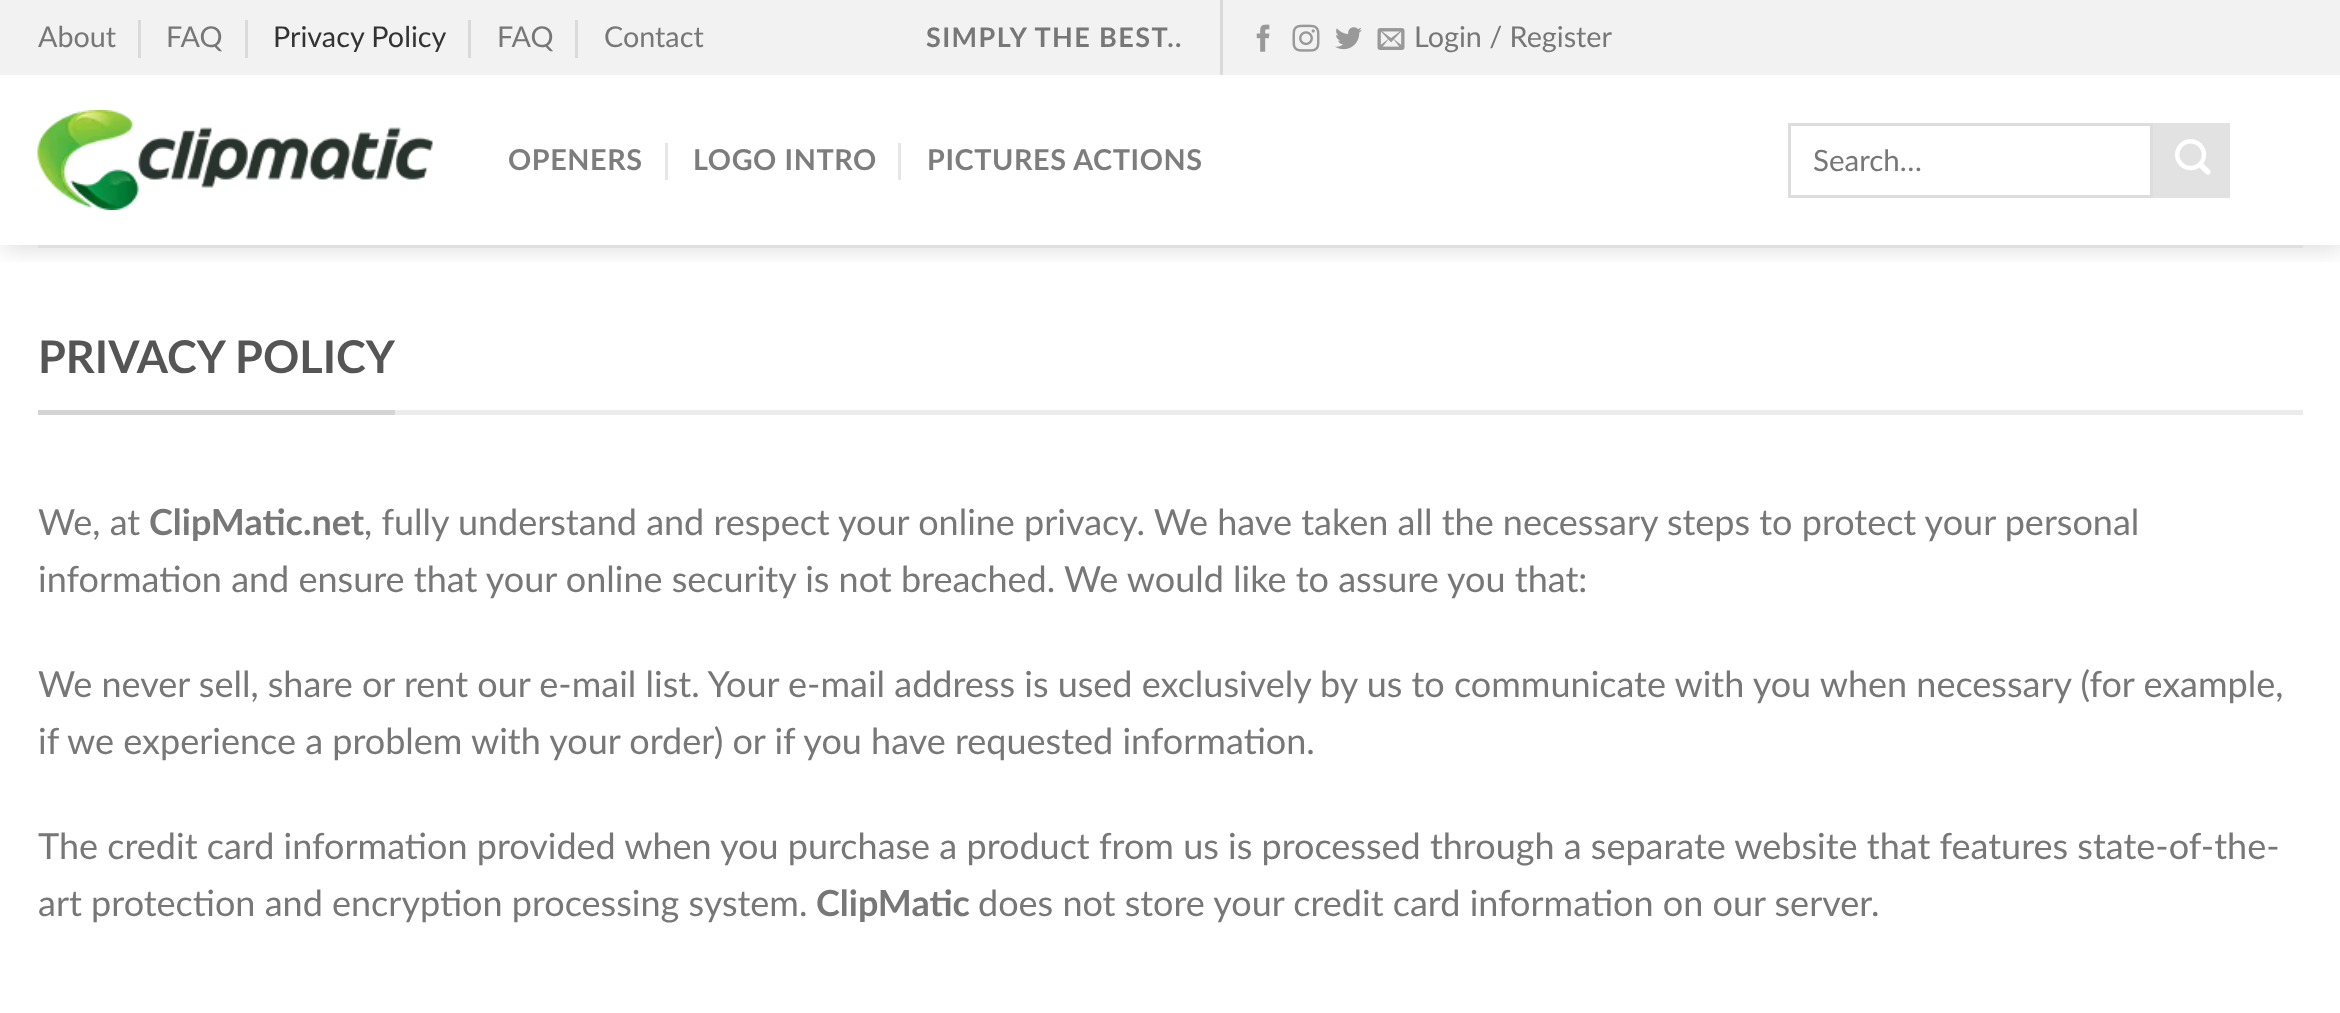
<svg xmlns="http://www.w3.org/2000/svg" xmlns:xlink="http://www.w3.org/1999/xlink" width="2340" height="1013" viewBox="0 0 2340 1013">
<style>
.cls-1{font:28.75px Lato;fill:#777777}
.cls-2{font:28.75px Lato;fill:#333333}
.cls-3{font:bold 27px Lato;letter-spacing:1.4px;fill:#777777}
.cls-4{font:bold 28.75px Lato;letter-spacing:0.6px;fill:#7d7d7d}
.cls-5{font:29.5px Lato;fill:#777777}
.cls-6{font:bold 45px Lato;fill:#555555}
.cls-7{font:36px Lato;fill:#777777}
.cls-8{font:bold 36px Lato;fill:#777777}
</style>
<defs>
<clipPath id="clip1"><rect x="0" y="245" width="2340" height="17"/></clipPath>
</defs>
<rect width="100%" height="100%" fill="#ffffff"/>
<g clip-path="url(#clip1)">
<rect fill="#000000" fill-opacity="0.15" filter="blur(12.5px)" x="3" y="3" width="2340" height="245"/>
</g>
<rect fill="#f2f2f2" x="0" y="0" width="2340" height="75"/>
<rect fill="#dadada" x="138" y="20" width="3" height="38"/>
<rect fill="#dadada" x="245" y="20" width="3" height="38"/>
<rect fill="#dadada" x="468" y="20" width="3" height="38"/>
<rect fill="#dadada" x="575" y="20" width="3" height="38"/>
<rect fill="#dadada" x="1220" y="0" width="3" height="75"/>
<image xlink:href="image0.png" x="1256" y="24" width="14" height="28"/>
<image xlink:href="image1.png" x="1292" y="24" width="28" height="28"/>
<image xlink:href="image2.png" x="1335" y="27" width="27" height="23"/>
<image xlink:href="image3.png" x="1377" y="28" width="28" height="22"/>
<image xlink:href="image4.png" x="37" y="110" width="396" height="100"/>
<rect fill="#e6e6e6" x="665" y="143" width="3" height="37"/>
<rect fill="#e6e6e6" x="898" y="143" width="3" height="37"/>
<rect fill="none" stroke="#dddddd" stroke-width="3" x="1789.5" y="124.5" width="362" height="72"/>
<rect fill="#e2e2e2" x="2153" y="123" width="77" height="75"/>
<image xlink:href="image5.png" x="2175" y="139" width="36" height="36"/>
<rect fill="#dfdfdf" x="38" y="245" width="2265" height="3"/>
<rect fill="#ececec" x="395" y="410" width="1908" height="5"/>
<rect fill="#d4d4d4" x="38" y="410" width="357" height="5"/>
<text class="cls-1" x="38" y="47">About</text>
<text class="cls-1" x="166" y="47">FAQ</text>
<text class="cls-2" x="273" y="47">Privacy Policy</text>
<text class="cls-1" x="497" y="47">FAQ</text>
<text class="cls-1" x="604" y="47">Contact</text>
<text class="cls-3" x="926" y="47">SIMPLY THE BEST..</text>
<text class="cls-1" x="1414" y="47">Login / Register</text>
<text class="cls-4" x="508" y="170">OPENERS</text>
<text class="cls-4" x="693" y="170">LOGO INTRO</text>
<text class="cls-4" x="927" y="170">PICTURES ACTIONS</text>
<text class="cls-5" x="1813" y="171">Search…</text>
<text class="cls-6" x="38" y="373">PRIVACY POLICY</text>
<text class="cls-7" x="38" y="535">We, at</text>
<text class="cls-8" x="149" y="535">ClipMatic.net</text>
<text class="cls-7" x="364" y="535">, fully understand and respect your online privacy. We have taken all the necessary steps to protect your personal</text>
<text class="cls-7" x="38" y="592">information and ensure that your online security is not breached. We would like to assure you that:</text>
<text class="cls-7"><tspan x="38" y="697">We never sell, share or rent our e-mail list. Your e-mail address is used exclusively by us to communicate with you when necessary (for example,</tspan><tspan x="38" y="754">if we experience a problem with your order) or if you have requested information.</tspan></text>
<text class="cls-7"><tspan x="38" y="859">The credit card information provided when you purchase a product from us is processed through a separate website that features state-of-the-</tspan><tspan x="38" y="916">art protection and encryption processing system.</tspan></text>
<text class="cls-8" x="816" y="916">ClipMatic</text>
<text class="cls-7" x="978" y="916">does not store your credit card information on our server.</text>
</svg>
